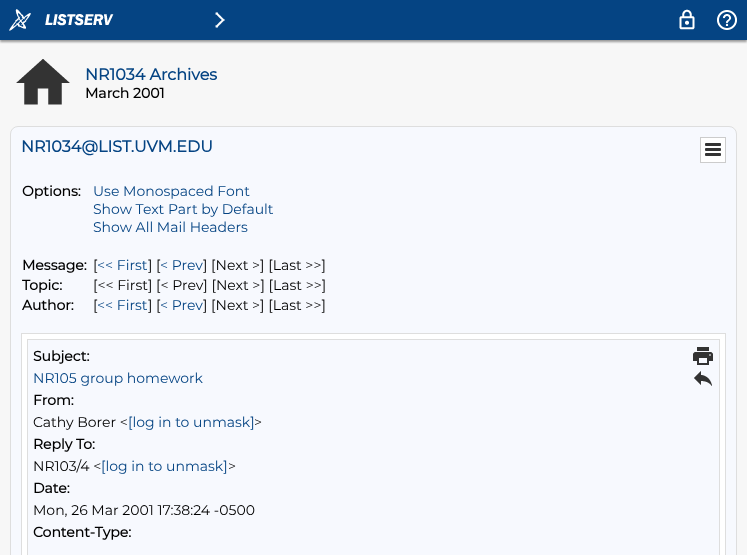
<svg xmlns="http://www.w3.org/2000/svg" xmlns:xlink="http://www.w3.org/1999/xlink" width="747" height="555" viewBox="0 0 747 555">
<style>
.cls-1{font:bold 16px Montserrat;fill:#054483}
.cls-2{font:bold 14px Montserrat;fill:#000000}
.cls-3{font:100 14px Montserrat;fill:#054483}
.cls-4{font:100 14px Montserrat;fill:#000000}
</style>
<rect width="100%" height="100%" fill="#f7f7f7"/>
<rect fill="#999999" filter="blur(1px)" x="0" y="2" width="747" height="40"/>
<rect fill="#054483" x="0" y="0" width="747" height="40"/>
<image xlink:href="image0.png" x="9" y="9" width="22" height="22"/>
<image xlink:href="image1.png" x="45" y="14" width="69" height="12"/>
<image xlink:href="image2.png" x="215" y="12" width="10" height="16"/>
<image xlink:href="image3.png" x="679" y="9" width="16" height="21"/>
<image xlink:href="image4.png" x="717" y="10" width="20" height="20"/>
<image xlink:href="image5.png" x="16" y="59" width="54" height="46"/>
<rect fill="#f7f9fe" stroke="#dedede" x="10.5" y="126.5" width="726" height="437" rx="7.5"/>
<rect fill="#ffffff" stroke="#cccccc" x="700.5" y="137.5" width="25" height="25"/>
<image xlink:href="image6.png" x="705" y="143" width="16" height="13"/>
<rect fill="none" stroke="#dedede" x="21.5" y="333.5" width="704" height="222"/>
<rect fill="#ffffff" x="22" y="334" width="703" height="221"/>
<rect fill="none" stroke="#dedede" x="27.5" y="339.5" width="692" height="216"/>
<rect fill="#f7f9fe" x="28" y="340" width="691" height="215"/>
<image xlink:href="image7.png" x="693" y="347" width="20" height="18"/>
<image xlink:href="image8.png" x="694" y="371" width="18" height="15"/>
<text class="cls-1" x="85" y="80">NR1034 Archives</text>
<text class="cls-2" x="85" y="98">March 2001</text>
<text class="cls-1" x="21" y="152">NR1034@LIST.UVM.EDU</text>
<text class="cls-2" x="22" y="196">Options:</text>
<text class="cls-3"><tspan x="93" y="196">Use Monospaced Font</tspan><tspan x="93" y="214">Show Text Part by Default</tspan><tspan x="93" y="232">Show All Mail Headers</tspan></text>
<text class="cls-2" x="22" y="270">Message:</text>
<text class="cls-4" x="93" y="270">[</text>
<text class="cls-3" x="97" y="270">&lt;&lt; First</text>
<text class="cls-4" x="148" y="270">] [</text>
<text class="cls-3" x="160" y="270">&lt; Prev</text>
<text class="cls-4" x="203" y="270">] [Next &gt;] [Last &gt;&gt;]</text>
<text class="cls-2" x="22" y="290">Topic:</text>
<text class="cls-4" x="93" y="290">[&lt;&lt; First] [&lt; Prev] [Next &gt;] [Last &gt;&gt;]</text>
<text class="cls-2" x="22" y="310">Author:</text>
<text class="cls-4" x="93" y="310">[</text>
<text class="cls-3" x="97" y="310">&lt;&lt; First</text>
<text class="cls-4" x="148" y="310">] [</text>
<text class="cls-3" x="160" y="310">&lt; Prev</text>
<text class="cls-4" x="203" y="310">] [Next &gt;] [Last &gt;&gt;]</text>
<text class="cls-2" x="33" y="361">Subject:</text>
<text class="cls-3" x="33" y="383">NR105 group homework</text>
<text class="cls-2" x="33" y="405">From:</text>
<text class="cls-4" x="33" y="427">Cathy Borer &lt;</text>
<text class="cls-3" x="128" y="427">[log in to unmask]</text>
<text class="cls-4" x="254" y="427">&gt;</text>
<text class="cls-2" x="33" y="449">Reply To:</text>
<text class="cls-4" x="33" y="471">NR103/4 &lt;</text>
<text class="cls-3" x="101" y="471">[log in to unmask]</text>
<text class="cls-4" x="228" y="471">&gt;</text>
<text class="cls-2" x="33" y="493">Date:</text>
<text class="cls-4" x="33" y="515">Mon, 26 Mar 2001 17:38:24 -0500</text>
<text class="cls-2" x="33" y="537">Content-Type:</text>
</svg>
